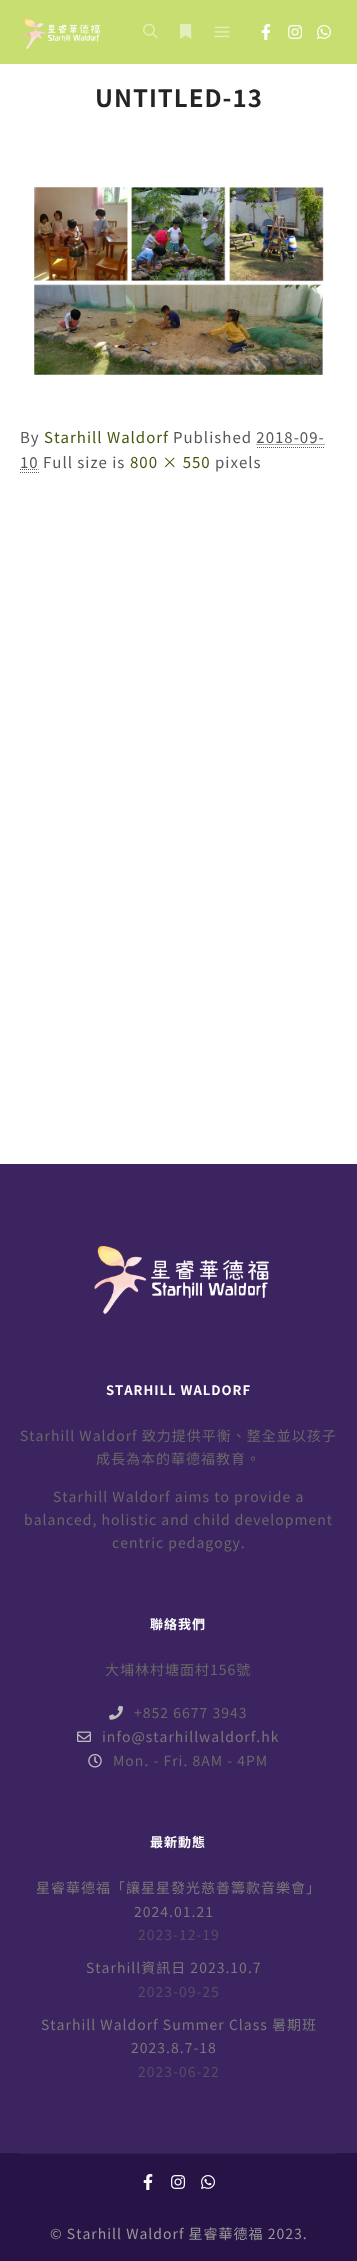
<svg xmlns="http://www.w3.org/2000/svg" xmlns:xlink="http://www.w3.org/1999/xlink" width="357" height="2261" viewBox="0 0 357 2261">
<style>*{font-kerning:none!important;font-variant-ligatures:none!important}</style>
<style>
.cls-1{font:bold 24px Noto Sans HK;letter-spacing:1px;fill:#242424}
.cls-2{font:15px Noto Sans HK;letter-spacing:1px;fill:#575757}
.cls-3{font:15px Noto Sans HK;letter-spacing:1px;fill:#44590e}
.cls-4{font:bold 13px Noto Sans HK;letter-spacing:1px;fill:#ffffff}
.cls-5{font:14px Noto Sans HK;letter-spacing:1px;fill:#686868}
.cls-6{font:14px Noto Sans HK;letter-spacing:1px;fill:#787878}
.cls-7{font:14px Noto Sans HK;letter-spacing:1px;fill:#564d65}
.cls-8{font:14px Noto Sans HK;letter-spacing:1px;fill:#999999}
</style>
<rect width="100%" height="100%" fill="#ffffff"/>
<rect fill="#c7de71" x="0" y="0" width="357" height="64"/>
<image xlink:href="image0.png" x="22" y="18" width="78" height="31"/>
<image xlink:href="image1.png" x="143" y="23" width="15" height="16"/>
<image xlink:href="image2.png" x="180" y="23" width="12" height="16"/>
<image xlink:href="image3.png" x="214" y="26" width="16" height="12"/>
<image xlink:href="image4.png" x="261" y="24" width="10" height="16"/>
<image xlink:href="image5.png" x="288" y="25" width="14" height="14"/>
<image xlink:href="image6.png" x="317" y="25" width="14" height="14"/>
<image xlink:href="image7.png" x="34" y="187" width="290" height="188"/>
<path fill="none" stroke="#575757" stroke-dasharray="1 1" d="M257 447.5H325"/>
<path fill="none" stroke="#575757" stroke-dasharray="1 1" d="M256.5 444.5H325"/>
<path fill="none" stroke="#575757" stroke-dasharray="1 1" d="M20 472.5H39"/>
<path fill="none" stroke="#575757" stroke-dasharray="1 1" d="M20 469.5H38.5"/>
<rect fill="#3c2460" x="0" y="1164" width="357" height="989"/>
<image xlink:href="image8.png" x="94" y="1246" width="175" height="68"/>
<image xlink:href="image9.png" x="109" y="1705" width="14" height="15"/>
<image xlink:href="image10.png" x="77" y="1731" width="14" height="11"/>
<image xlink:href="image11.png" x="88" y="1754" width="14" height="14"/>
<rect fill="#271346" x="0" y="2153" width="357" height="108"/>
<rect fill="#342151" x="20" y="2153" width="317" height="1"/>
<image xlink:href="image12.png" x="143" y="2174" width="10" height="16"/>
<image xlink:href="image13.png" x="171" y="2175" width="15" height="14"/>
<image xlink:href="image14.png" x="201" y="2175" width="14" height="14"/>
<text class="cls-1" x="95" y="107">UNTITLED-13</text>
<text class="cls-2" x="20" y="443">By</text>
<text class="cls-3" x="44" y="443">Starhill Waldorf</text>
<text class="cls-2" x="173" y="443">Published 2018-09-</text>
<text class="cls-2" x="20" y="468">10 Full size is</text>
<text class="cls-3" x="130" y="468">800 × 550</text>
<text class="cls-2" x="215" y="468">pixels</text>
<text class="cls-4" x="106" y="1395">STARHILL WALDORF</text>
<text class="cls-5" x="20" y="1441">Starhill Waldorf 致力提供平衡、整全並以孩子</text>
<text class="cls-5" x="96" y="1464">成長為本的華德福教育。</text>
<text class="cls-5" x="53" y="1502">Starhill Waldorf aims to provide a</text>
<text class="cls-5" x="24" y="1525">balanced, holistic and child development</text>
<text class="cls-5" x="112" y="1548">centric pedagogy.</text>
<text class="cls-4" x="150" y="1629">聯絡我們</text>
<text class="cls-5" x="105" y="1675">大埔林村塘面村156號</text>
<text class="cls-5" x="134" y="1718">+852 6677 3943</text>
<text class="cls-6" x="102" y="1742">info@starhillwaldorf.hk</text>
<text class="cls-5" x="113" y="1766">Mon. - Fri. 8AM - 4PM</text>
<text class="cls-4" x="150" y="1847">最新動態</text>
<text class="cls-6" x="36" y="1893">星睿華德福「讓星星發光慈善籌款音樂會」</text>
<text class="cls-6" x="134" y="1917">2024.01.21</text>
<text class="cls-7" x="138" y="1940">2023-12-19</text>
<text class="cls-6" x="86" y="1973">Starhill資訊日 2023.10.7</text>
<text class="cls-7" x="138" y="1997">2023-09-25</text>
<text class="cls-6" x="41" y="2030">Starhill Waldorf Summer Class 暑期班</text>
<text class="cls-6" x="131" y="2053">2023.8.7-18</text>
<text class="cls-7" x="138" y="2077">2023-06-22</text>
<text class="cls-8" x="50" y="2239">© Starhill Waldorf 星睿華德福 2023.</text>
</svg>
